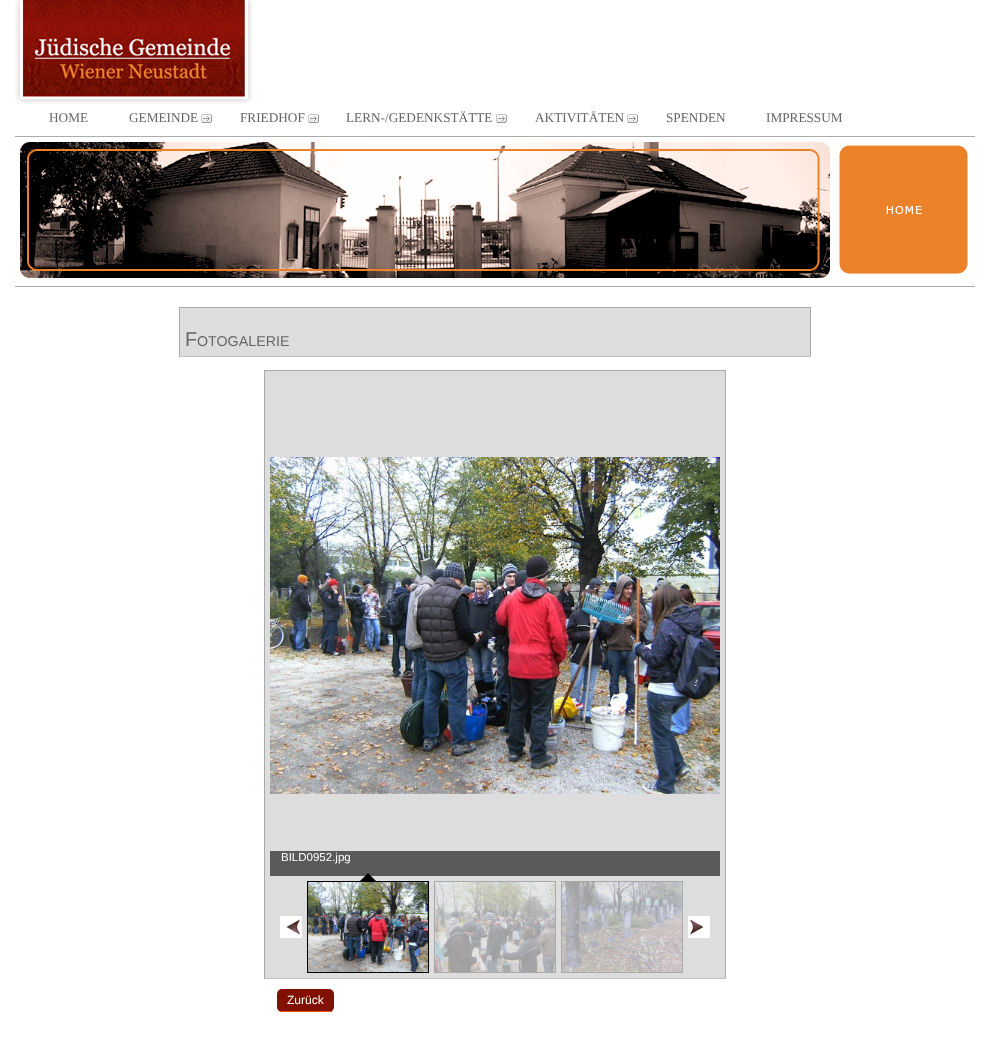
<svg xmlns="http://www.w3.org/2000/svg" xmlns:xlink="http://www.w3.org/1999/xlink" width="989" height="1061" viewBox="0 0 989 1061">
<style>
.cls-1{font:13.25px Liberation Serif;fill:#666666}
.cls-2{font:20px Liberation Sans;fill:#666666}
.cls-3{font:14.25px Liberation Sans;fill:#666666}
.cls-4{font:11.5px Liberation Sans;fill:#ffffff}
.cls-5{font:12px Liberation Sans;fill:#ffffff}
</style>
<rect width="100%" height="100%" fill="#ffffff"/>
<image xlink:href="image0.png" x="15" y="0" width="238" height="104"/>
<rect fill="#acacac" x="15" y="136" width="960" height="1"/>
<image xlink:href="image1.png" x="201" y="114" width="11" height="9"/>
<image xlink:href="image1.png" x="308" y="114" width="11" height="9"/>
<image xlink:href="image1.png" x="496" y="114" width="11" height="9"/>
<image xlink:href="image1.png" x="627" y="114" width="11" height="9"/>
<rect fill="#acacac" x="15" y="286" width="960" height="1"/>
<image xlink:href="image2.png" x="20" y="142" width="948" height="136"/>
<rect fill="#dddddd" x="180" y="308" width="630" height="48"/>
<rect fill="#aaaaaa" x="179" y="307" width="632" height="1"/>
<rect fill="#aaaaaa" x="810" y="307" width="1" height="50"/>
<rect fill="#c0c0c0" x="179" y="356" width="632" height="1"/>
<rect fill="#aaaaaa" x="179" y="307" width="1" height="50"/>
<rect fill="#dddddd" x="265" y="371" width="460" height="607"/>
<rect fill="#aaaaaa" x="264" y="370" width="462" height="1"/>
<rect fill="#aaaaaa" x="725" y="370" width="1" height="609"/>
<rect fill="#c0c0c0" x="264" y="978" width="462" height="1"/>
<rect fill="#aaaaaa" x="264" y="370" width="1" height="609"/>
<image xlink:href="image3.png" x="270" y="457" width="450" height="337"/>
<rect fill="#5a5a5a" x="270" y="851" width="450" height="25"/>
<path fill="#000000" d="M376 881H360L368 873Z"/>
<image xlink:href="image4.png" x="280" y="916" width="22" height="22"/>
<rect fill="none" stroke="#000000" x="307.5" y="881.5" width="121" height="91"/>
<image xlink:href="image5.png" x="308" y="882" width="120" height="90"/>
<rect fill="none" stroke="#aaaaaa" x="434.5" y="881.5" width="121" height="91"/>
<image xlink:href="image6.png" x="435" y="882" width="120" height="90"/>
<rect fill="none" stroke="#aaaaaa" x="561.5" y="881.5" width="121" height="91"/>
<image xlink:href="image7.png" x="562" y="882" width="120" height="90"/>
<image xlink:href="image8.png" x="688" y="916" width="22" height="22"/>
<rect fill="#811001" x="277" y="989" width="57" height="23" rx="5"/>
<rect fill="#ee520c" x="280" y="1011" width="52" height="1"/>
<text class="cls-1" x="49" y="122">HOME</text>
<text class="cls-1" x="129" y="122">GEMEINDE</text>
<text class="cls-1" x="240" y="122">FRIEDHOF</text>
<text class="cls-1" x="346" y="122">LERN-/GEDENKSTÄTTE</text>
<text class="cls-1" x="535" y="122">AKTIVITÄTEN</text>
<text class="cls-1" x="666" y="122">SPENDEN</text>
<text class="cls-1" x="766" y="122">IMPRESSUM</text>
<text class="cls-2" x="185" y="346">F</text>
<text class="cls-3" x="197" y="346">OTOGALERIE</text>
<text class="cls-4" x="281" y="861">BILD0952.jpg</text>
<text class="cls-5" x="287" y="1004">Zurück</text>
</svg>
